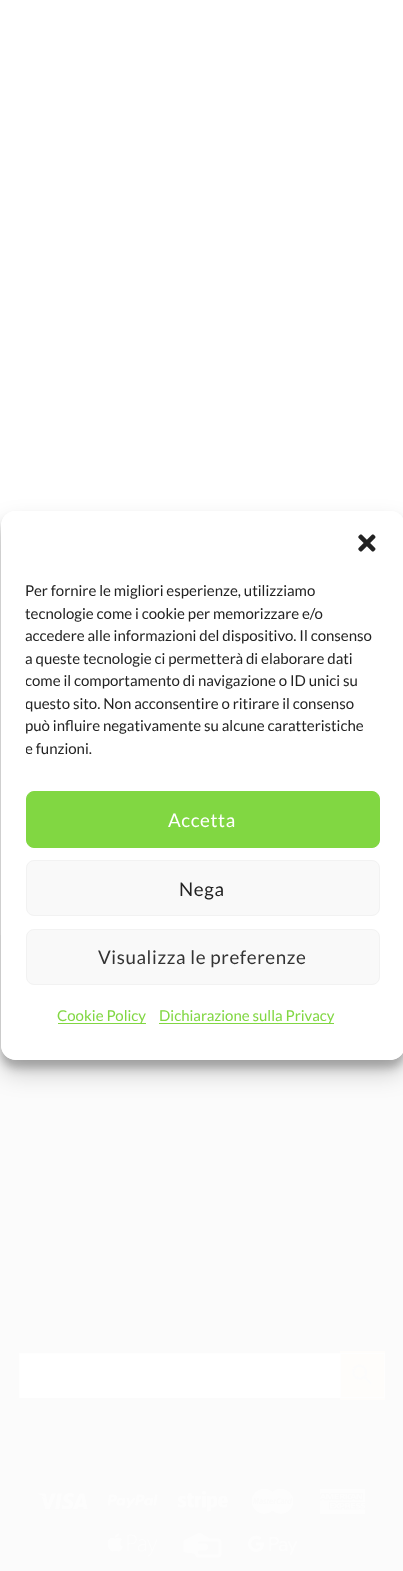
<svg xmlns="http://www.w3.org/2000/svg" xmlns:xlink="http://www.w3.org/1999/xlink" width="403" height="1571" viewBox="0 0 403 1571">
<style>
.cls-1{font:15px Lato;fill:#222222}
.cls-2{font:18.75px Lato;letter-spacing:0.6px;fill:#ffffff}
.cls-3{font:18.75px Lato;letter-spacing:0.6px;fill:#222222}
.cls-4{font:18.75px Lato;letter-spacing:0.6px;fill:#333333}
.cls-5{font:15px Lato;fill:#81d742}
</style>
<defs>
<clipPath id="clip1"><path d="M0 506H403V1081H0ZM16 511H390C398.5 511 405 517.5 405 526V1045C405 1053.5 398.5 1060 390 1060H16C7.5 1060 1 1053.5 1 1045V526C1 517.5 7.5 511 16 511Z" clip-rule="evenodd"/></clipPath>
<clipPath id="clip2"><path d="M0 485H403V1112H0ZM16 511H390C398.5 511 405 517.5 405 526V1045C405 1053.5 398.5 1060 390 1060H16C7.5 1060 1 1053.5 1 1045V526C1 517.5 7.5 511 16 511Z" clip-rule="evenodd"/></clipPath>
<clipPath id="clip3"><rect x="26" y="580" width="354" height="186"/></clipPath>
</defs>
<rect width="100%" height="100%" fill="#ffffff"/>
<rect fill="#fbfbfb" x="0" y="936" width="403" height="268"/>
<rect fill="#fbfbfb" x="0" y="935" width="1" height="1"/>
<g clip-path="url(#clip1)">
<rect fill="#000000" fill-opacity="0.23" filter="blur(4px)" x="1" y="519" width="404" height="549" rx="15"/>
</g>
<g clip-path="url(#clip2)">
<rect fill="#000000" fill-opacity="0.19" filter="blur(12.5px)" x="1" y="524" width="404" height="549" rx="15"/>
</g>
<rect fill="#ffffff" x="1" y="511" width="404" height="549" rx="15"/>
<image xlink:href="image0.png" x="358" y="534" width="18" height="18"/>
<rect fill="#81d742" stroke="#81d742" x="26.5" y="791.5" width="353" height="56" rx="7.5"/>
<rect fill="#f9f9f9" stroke="#f2f2f2" x="26.5" y="860.5" width="353" height="55" rx="7.5"/>
<rect fill="#f9f9f9" stroke="#f2f2f2" x="26.5" y="929.5" width="353" height="55" rx="7.5"/>
<rect fill="#81d742" x="58" y="1023" width="88" height="1"/>
<rect fill="#81d742" x="159" y="1023" width="175" height="1"/>
<rect fill="#fbfbfb" x="0" y="1204" width="403" height="367"/>
<rect fill="#ffffff" x="20" y="1354" width="320" height="44"/>
<rect fill="#fefefe" x="19" y="1353" width="321" height="1"/>
<rect fill="#fefefe" x="19" y="1353" width="1" height="45"/>
<rect fill="#fefdfb" x="340" y="1351" width="45" height="49"/>
<rect fill="none" stroke="#fefefe" x="340.5" y="1353.5" width="44" height="44"/>
<image xlink:href="image1.png" x="352" y="1364" width="20" height="21"/>
<image xlink:href="image2.png" x="38" y="1493" width="50" height="17"/>
<image xlink:href="image3.png" x="108" y="1494" width="50" height="14"/>
<image xlink:href="image4.png" x="178" y="1490" width="50" height="22"/>
<image xlink:href="image5.png" x="251" y="1489" width="43" height="25"/>
<image xlink:href="image6.png" x="319" y="1489" width="47" height="25"/>
<image xlink:href="image7.png" x="108" y="1533" width="50" height="24"/>
<image xlink:href="image8.png" x="183" y="1533" width="39" height="25"/>
<image xlink:href="image9.png" x="248" y="1535" width="50" height="21"/>
<text class="cls-1"><tspan x="25" y="596">Per fornire le migliori esperienze, utilizziamo</tspan><tspan x="25" y="619">tecnologie come i cookie per memorizzare e/o</tspan><tspan x="25" y="641">accedere alle informazioni del dispositivo. Il consenso</tspan><tspan x="25" y="664">a queste tecnologie ci permetterà di elaborare dati</tspan></text>
<g clip-path="url(#clip3)">
<text class="cls-1"><tspan x="25" y="686">come il comportamento di navigazione o ID unici su</tspan><tspan x="25" y="709">questo sito. Non acconsentire o ritirare il consenso</tspan></text>
</g>
<text class="cls-1" x="25" y="731">può influire negativamente su alcune caratteristiche</text>
<g clip-path="url(#clip3)">
<text class="cls-1" x="25" y="754">e funzioni.</text>
</g>
<text class="cls-2" x="168" y="827">Accetta</text>
<text class="cls-3" x="179" y="896">Nega</text>
<text class="cls-4" x="98" y="964">Visualizza le preferenze</text>
<text class="cls-5" x="57" y="1021">Cookie Policy</text>
<text class="cls-5" x="159" y="1021">Dichiarazione sulla Privacy</text>
</svg>
